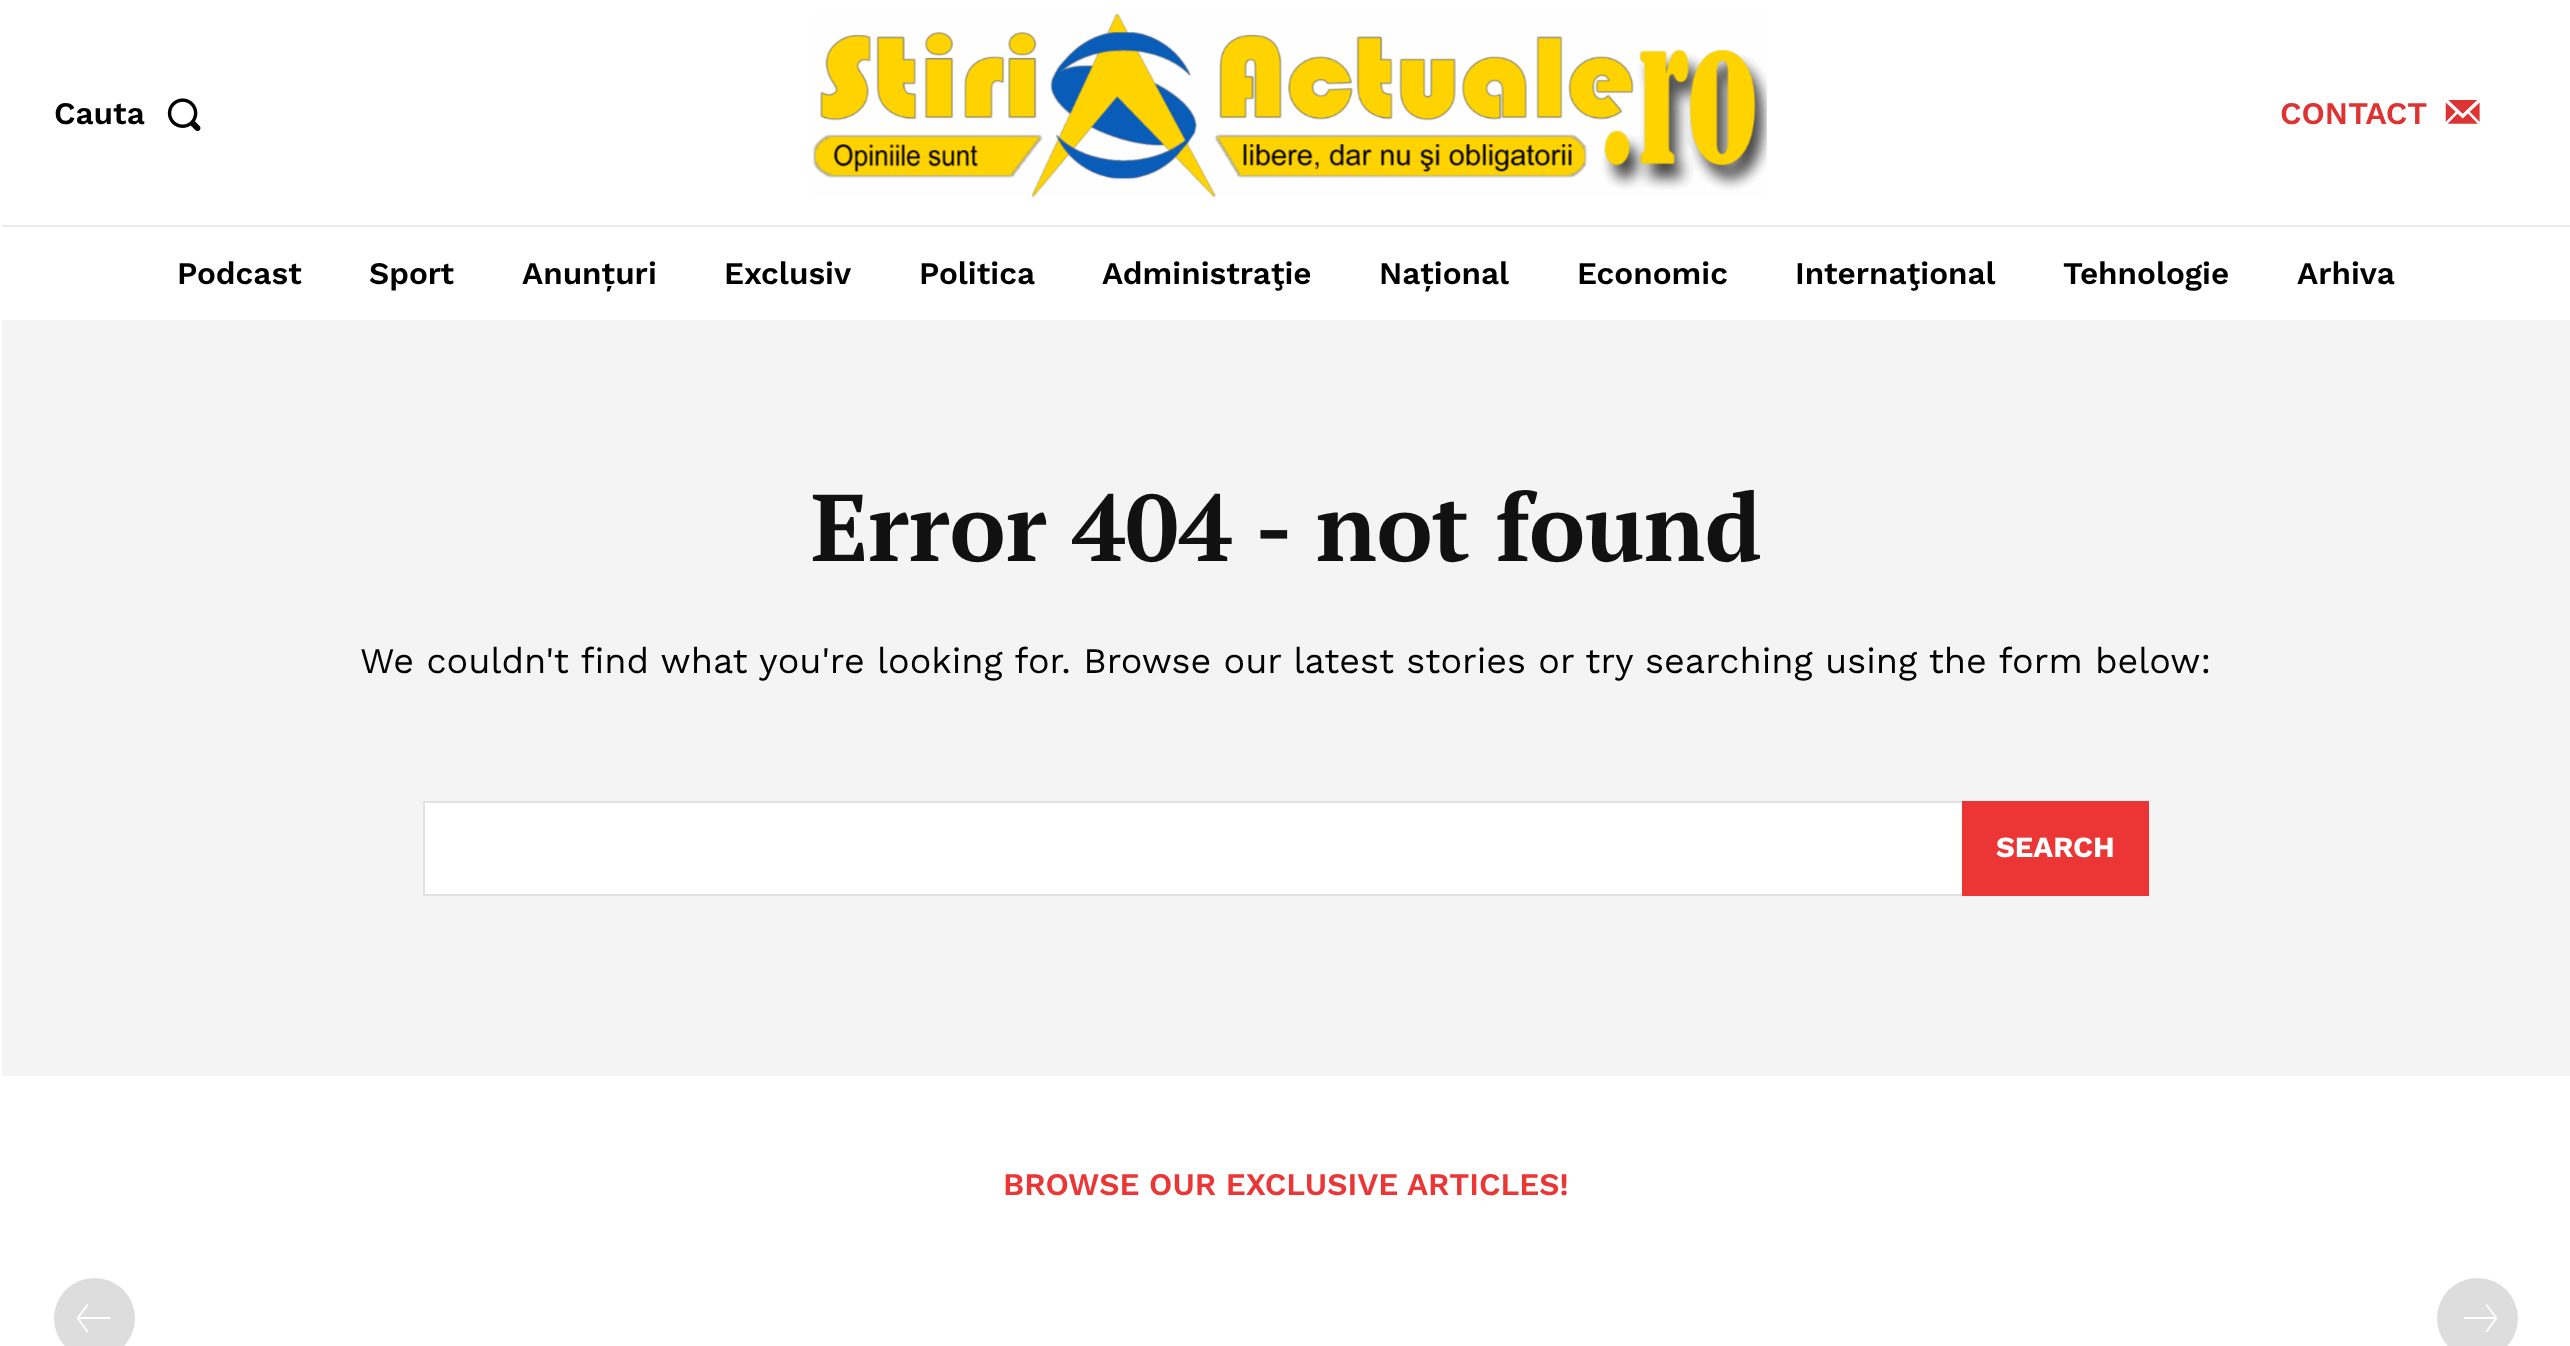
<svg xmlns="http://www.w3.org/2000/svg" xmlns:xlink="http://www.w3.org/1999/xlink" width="2570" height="1346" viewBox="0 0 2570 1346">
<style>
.cls-1{font:600 31.5px Work Sans;fill:#000000}
.cls-2{font:600 31.5px Work Sans;fill:#dd3333}
.cls-3{font:bold 94.5px PT Serif;fill:#111111}
.cls-4{font:36px Work Sans;fill:#000000}
.cls-5{font:bold 29.25px Work Sans;fill:#ffffff}
.cls-6{font:600 31.5px Work Sans;fill:#ec3535}
</style>
<rect width="100%" height="100%" fill="#ffffff"/>
<image xlink:href="image0.png" x="167" y="98" width="34" height="33"/>
<image xlink:href="image1.png" x="812" y="13" width="955" height="185"/>
<image xlink:href="image2.png" x="2445" y="100" width="35" height="24"/>
<rect fill="#eaeaea" x="2" y="225" width="2568" height="2"/>
<rect fill="#f4f4f4" x="2" y="320" width="2568" height="756"/>
<rect fill="#ffffff" x="425" y="803" width="1537" height="91"/>
<rect fill="none" stroke="#e1e1e1" stroke-width="2" x="424" y="802" width="1724" height="93"/>
<rect fill="#ec3535" x="1962" y="801" width="187" height="95"/>
<circle fill="#dddddd" cx="94.5" cy="1318.5" r="40.5"/>
<path fill="#ffffff" d="M88.5 1331.5L79.5 1319H110V1317H79.5L88.5 1305L87 1304L76.5 1318L87 1332.5Z"/>
<circle fill="#dddddd" cx="2477.5" cy="1318.5" r="40.5"/>
<path fill="#ffffff" d="M2485.5 1331.5L2487 1332.5L2497.5 1318L2487 1304L2485.5 1305L2494.5 1317H2464V1319H2494.5Z"/>
<text class="cls-1" x="54" y="124">Cauta</text>
<text class="cls-2" x="2280" y="124">CONTACT</text>
<text class="cls-1" x="177" y="284">Podcast</text>
<text class="cls-1" x="369" y="284">Sport</text>
<text class="cls-1" x="522" y="284">Anunțuri</text>
<text class="cls-1" x="724" y="284">Exclusiv</text>
<text class="cls-1" x="919" y="284">Politica</text>
<text class="cls-1" x="1102" y="284">Administraţie</text>
<text class="cls-1" x="1379" y="284">Național</text>
<text class="cls-1" x="1577" y="284">Economic</text>
<text class="cls-1" x="1795" y="284">Internaţional</text>
<text class="cls-1" x="2063" y="284">Tehnologie</text>
<text class="cls-1" x="2297" y="284">Arhiva</text>
<text class="cls-3" x="811" y="561">Error 404 - not found</text>
<text class="cls-4" x="360" y="673">We couldn't find what you're looking for. Browse our latest stories or try searching using the form below:</text>
<text class="cls-5" x="1996" y="857">SEARCH</text>
<text class="cls-6" x="1003" y="1195">BROWSE OUR EXCLUSIVE ARTICLES!</text>
</svg>
